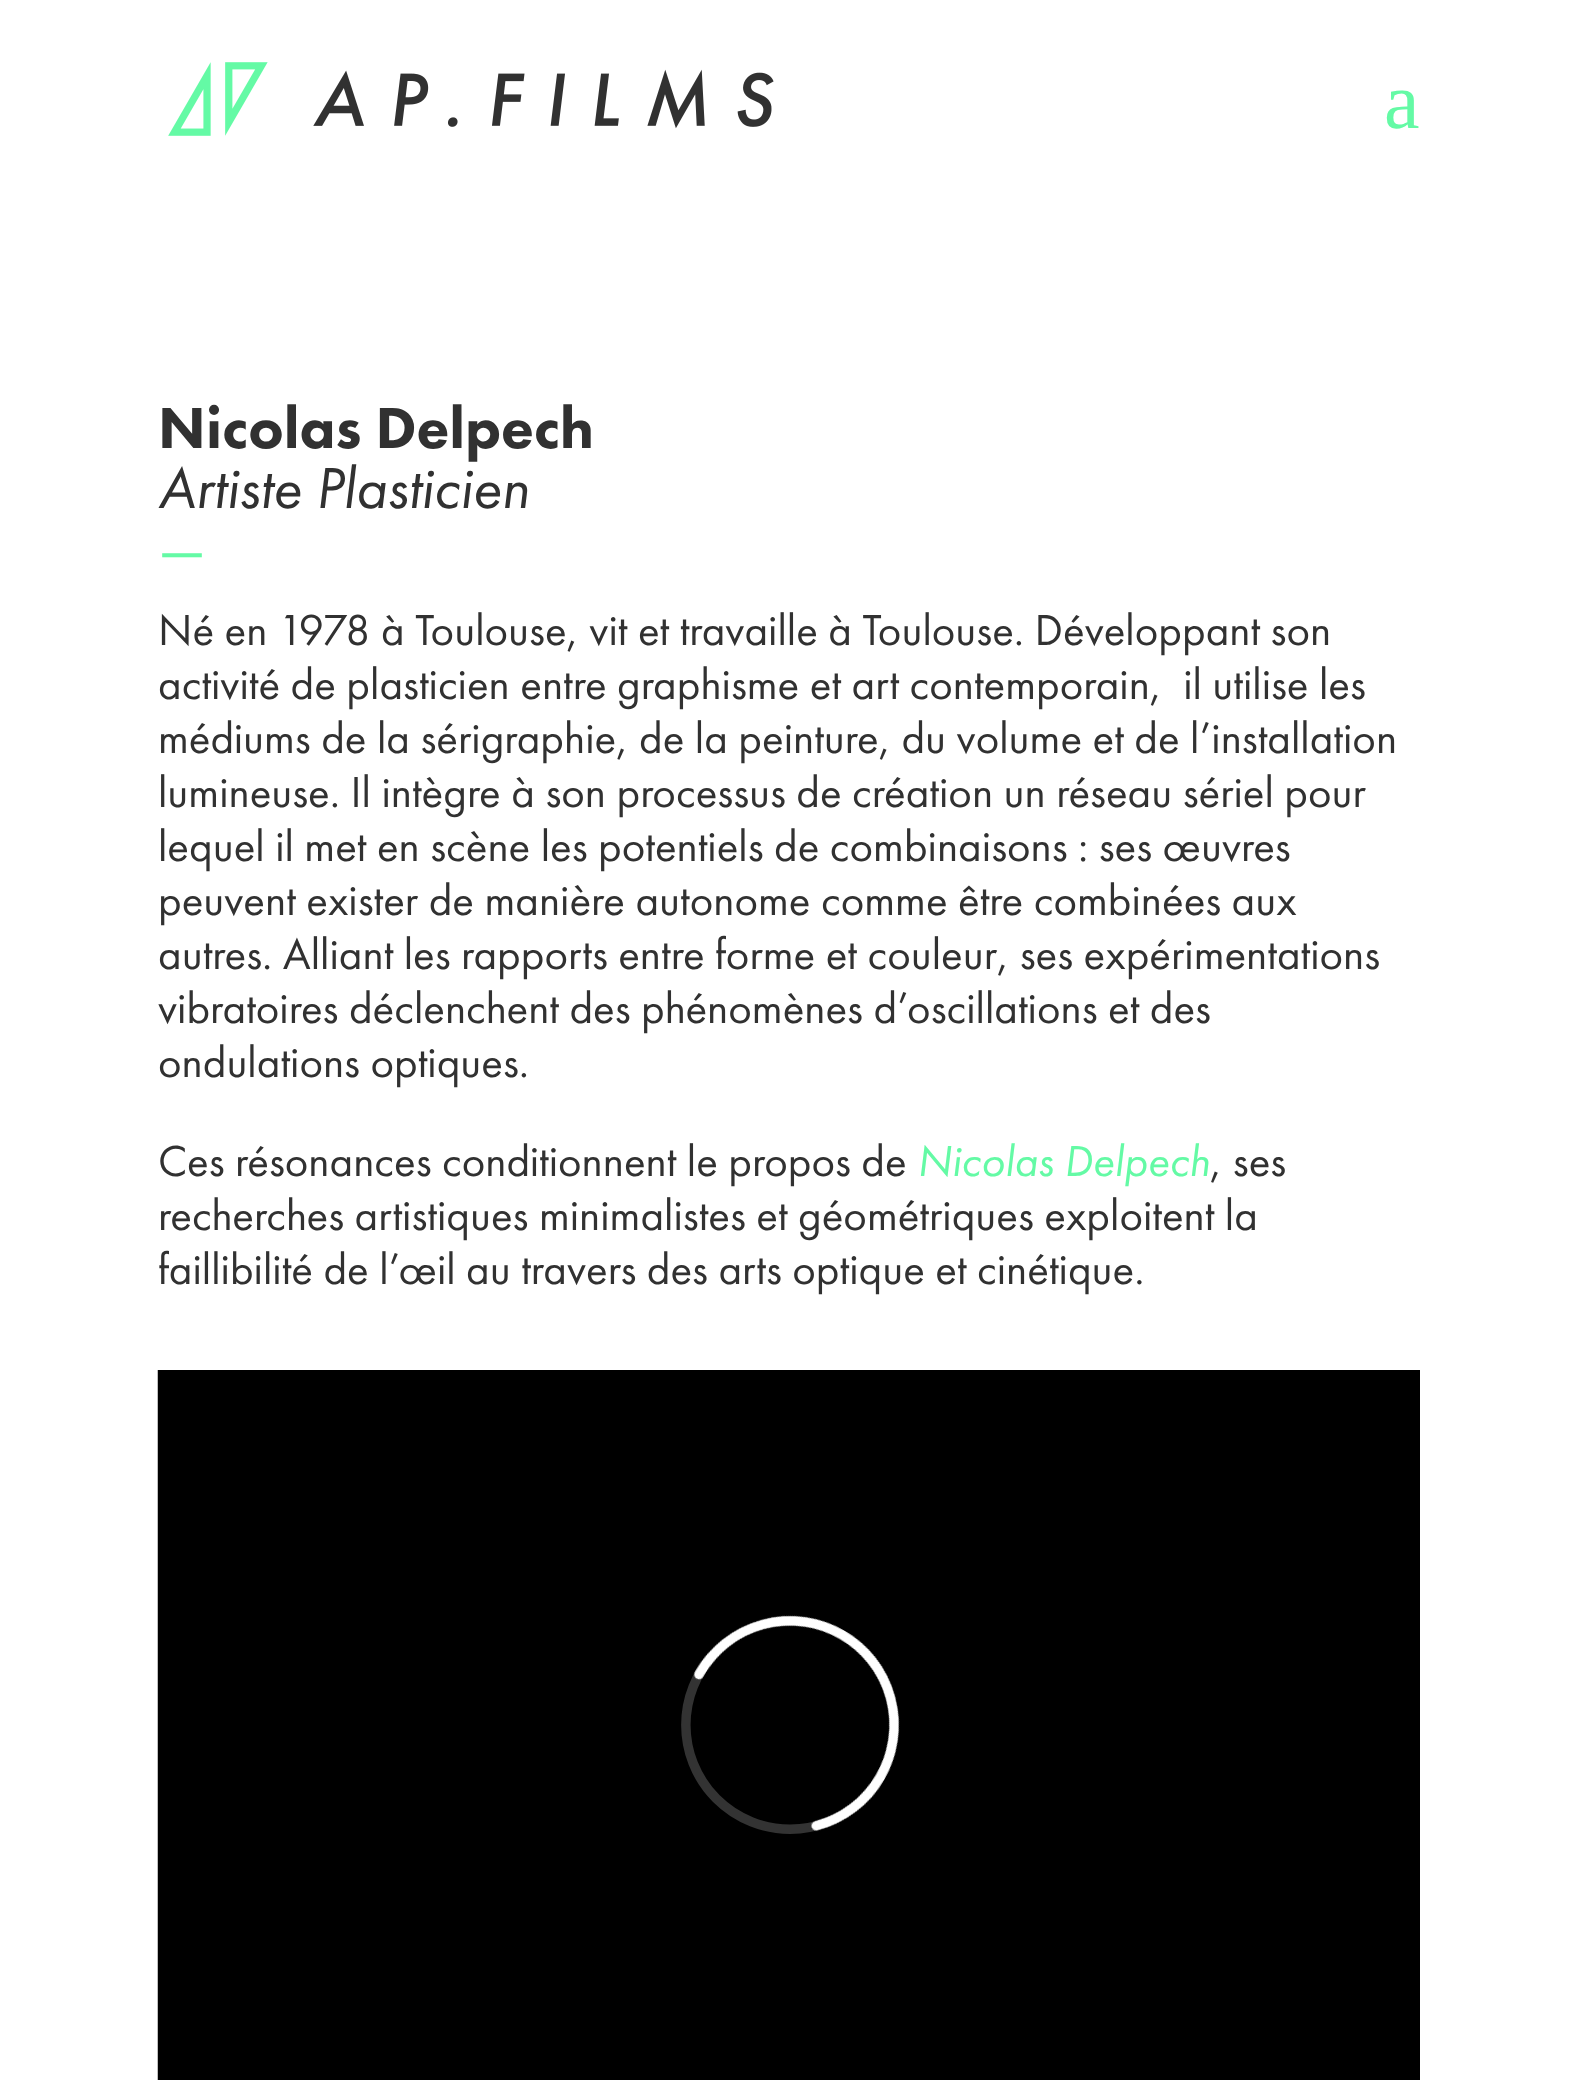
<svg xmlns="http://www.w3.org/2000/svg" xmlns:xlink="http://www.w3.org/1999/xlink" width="1577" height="2084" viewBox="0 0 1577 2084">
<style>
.cls-1{font:80px Liberation Serif;fill:#64faa5}
.cls-2{font:900 60px Futura PT;fill:#313131}
.cls-3{font:italic 60px Futura PT;fill:#313131}
.cls-4{font:60px Futura PT;fill:#64faa5}
.cls-5{font:45px Futura PT;fill:#313131}
.cls-6{font:italic 45px Futura PT;fill:#64faa5}
</style>
<rect width="100%" height="100%" fill="#ffffff"/>
<image xlink:href="image0.png" x="168" y="62" width="606" height="74"/>
<image xlink:href="image1.png" x="157" y="1370" width="1263" height="710"/>
<text class="cls-1" x="1384" y="128">a</text>
<text class="cls-2" x="158" y="448">Nicolas Delpech</text>
<text class="cls-3" x="158" y="508">Artiste Plasticien</text>
<text class="cls-4" x="158" y="568">—</text>
<text class="cls-5" xml:space="preserve"><tspan x="158" y="645">Né en 1978 à Toulouse, vit et travaille à Toulouse. Développant son</tspan><tspan x="158" y="699">activité de plasticien entre graphisme et art contemporain,  il utilise les</tspan><tspan x="158" y="753">médiums de la sérigraphie, de la peinture, du volume et de l’installation</tspan><tspan x="158" y="807">lumineuse. Il intègre à son processus de création un réseau sériel pour</tspan><tspan x="158" y="861">lequel il met en scène les potentiels de combinaisons : ses œuvres</tspan><tspan x="158" y="915">peuvent exister de manière autonome comme être combinées aux</tspan><tspan x="158" y="969">autres. Alliant les rapports entre forme et couleur, ses expérimentations</tspan><tspan x="158" y="1023">vibratoires déclenchent des phénomènes d’oscillations et des</tspan><tspan x="158" y="1077">ondulations optiques.</tspan></text>
<text class="cls-5" x="158" y="1176">Ces résonances conditionnent le propos de</text>
<text class="cls-6" x="917" y="1176">Nicolas Delpech</text>
<text class="cls-5" x="1210" y="1176">, ses</text>
<text class="cls-5"><tspan x="158" y="1230">recherches artistiques minimalistes et géométriques exploitent la</tspan><tspan x="158" y="1284">faillibilité de l’œil au travers des arts optique et cinétique.</tspan></text>
</svg>
